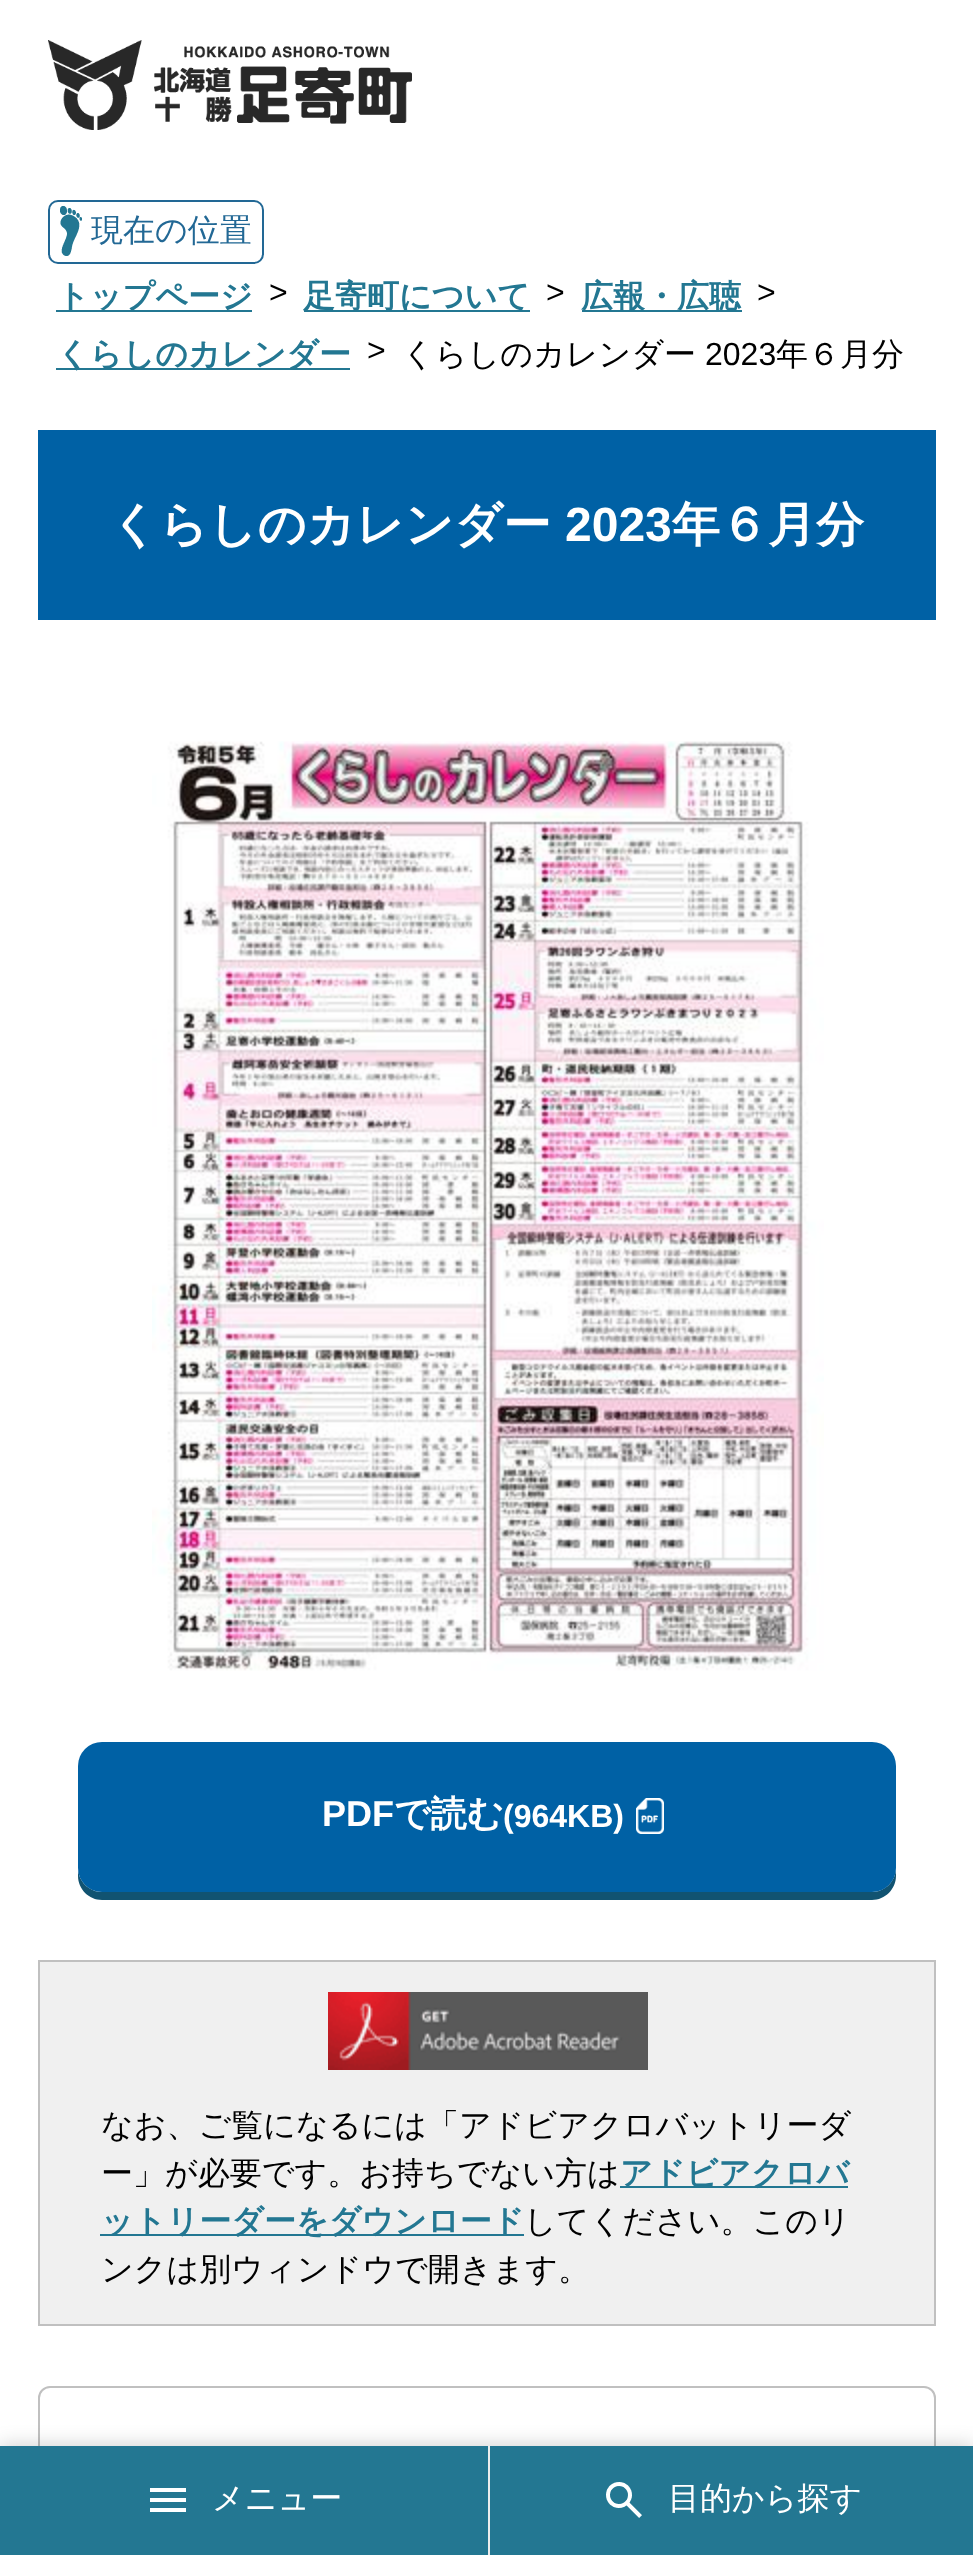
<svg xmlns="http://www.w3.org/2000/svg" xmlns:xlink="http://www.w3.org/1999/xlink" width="973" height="2555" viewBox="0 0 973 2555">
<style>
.cls-1{font:500 32px WenQuanYi Zen Hei;fill:#226895}
.cls-2{font:bold 32px WenQuanYi Zen Hei;fill:#237792}
.cls-3{font:32px Liberation Sans;fill:#000000}
.cls-4{font:500 32px WenQuanYi Zen Hei;fill:#000000}
.cls-5{font:bold 48px WenQuanYi Zen Hei;fill:#ffffff}
.cls-6{font:bold 48px Liberation Sans;fill:#ffffff}
.cls-7{font:bold 36px Liberation Sans;fill:#ffffff}
.cls-8{font:bold 36px WenQuanYi Zen Hei;fill:#ffffff}
.cls-9{font:bold 32px Liberation Sans;fill:#ffffff}
.cls-10{font:500 32px WenQuanYi Zen Hei;fill:#ffffff}
</style>
<rect width="100%" height="100%" fill="#ffffff"/>
<image xlink:href="image0.png" x="48" y="40" width="364" height="90"/>
<rect fill="none" stroke="#226895" stroke-width="2" x="49" y="201" width="214" height="62" rx="9"/>
<image xlink:href="image1.png" x="60" y="206" width="22" height="50"/>
<rect fill="#237792" x="56" y="310" width="196" height="2"/>
<rect fill="#237792" x="304" y="310" width="226" height="2"/>
<rect fill="#237792" x="582" y="310" width="160" height="2"/>
<rect fill="#237792" x="56" y="368" width="294" height="2"/>
<rect fill="#0061a5" x="38" y="430" width="898" height="190"/>
<image xlink:href="image2.png" x="152" y="741" width="672" height="930"/>
<path fill="#115371" d="M78 1868V1876C78 1889 89 1900 102 1900H872C885 1900 896 1889 896 1876V1868C896 1881 885 1892 872 1892H102C89 1892 78 1881 78 1868Z"/>
<rect fill="#0061a5" x="78" y="1742" width="818" height="150" rx="24"/>
<image xlink:href="image3.png" x="636" y="1798" width="28" height="36"/>
<rect fill="#f0f0f0" stroke="#c0c0c0" stroke-width="2" x="39" y="1961" width="896" height="364"/>
<image xlink:href="image4.png" x="328" y="1992" width="320" height="78"/>
<rect fill="#237792" x="620" y="2186" width="228" height="2"/>
<rect fill="#237792" x="100" y="2234" width="424" height="2"/>
<rect fill="none" stroke="#c0c0c0" stroke-width="2" x="39" y="2387" width="896" height="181" rx="11"/>
<rect fill="#000000" fill-opacity="0.2" filter="blur(10px)" x="0" y="2446" width="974" height="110"/>
<rect fill="#237792" x="0" y="2446" width="973" height="109"/>
<image xlink:href="image5.png" x="150" y="2488" width="36" height="24"/>
<rect fill="#ededed" x="488" y="2446" width="2" height="109"/>
<image xlink:href="image6.png" x="606" y="2482" width="36" height="36"/>
<text class="cls-1" x="91" y="241">現在の位置</text>
<text class="cls-2" x="57" y="307">トップページ</text>
<text class="cls-3" x="269" y="303">&gt;</text>
<text class="cls-2" x="303" y="307">足寄町について</text>
<text class="cls-3" x="546" y="303">&gt;</text>
<text class="cls-2" x="581" y="307">広報・広聴</text>
<text class="cls-3" x="757" y="303">&gt;</text>
<text class="cls-2" x="57" y="365">くらしのカレンダー</text>
<text class="cls-3" x="367" y="361">&gt;</text>
<text class="cls-4" x="402" y="365">くらしのカレンダー</text>
<text class="cls-3" x="705" y="365">2023</text>
<text class="cls-4" x="776" y="365">年６月分</text>
<text class="cls-5" x="110" y="541">くらしのカレンダー</text>
<text class="cls-6" x="565" y="541">2023</text>
<text class="cls-5" x="672" y="541">年６月分</text>
<text class="cls-7" x="322" y="1826">PDF</text>
<text class="cls-8" x="394" y="1826">で読む</text>
<text class="cls-9" x="503" y="1827">(964KB)</text>
<text class="cls-4"><tspan x="101" y="2136">なお、ご覧になるには「アドビアクロバットリーダ</tspan><tspan x="101" y="2184">ー」が必要です。お持ちでない方は</tspan></text>
<text class="cls-2" x="620" y="2184">アドビアクロバ</text>
<text class="cls-2" x="101" y="2232">ットリーダーをダウンロード</text>
<text class="cls-4" x="524" y="2232">してください。このリ</text>
<text class="cls-4" x="101" y="2280">ンクは別ウィンドウで開きます。</text>
<text class="cls-10" x="212" y="2509">メニュー</text>
<text class="cls-10" x="668" y="2509">目的から探す</text>
</svg>
